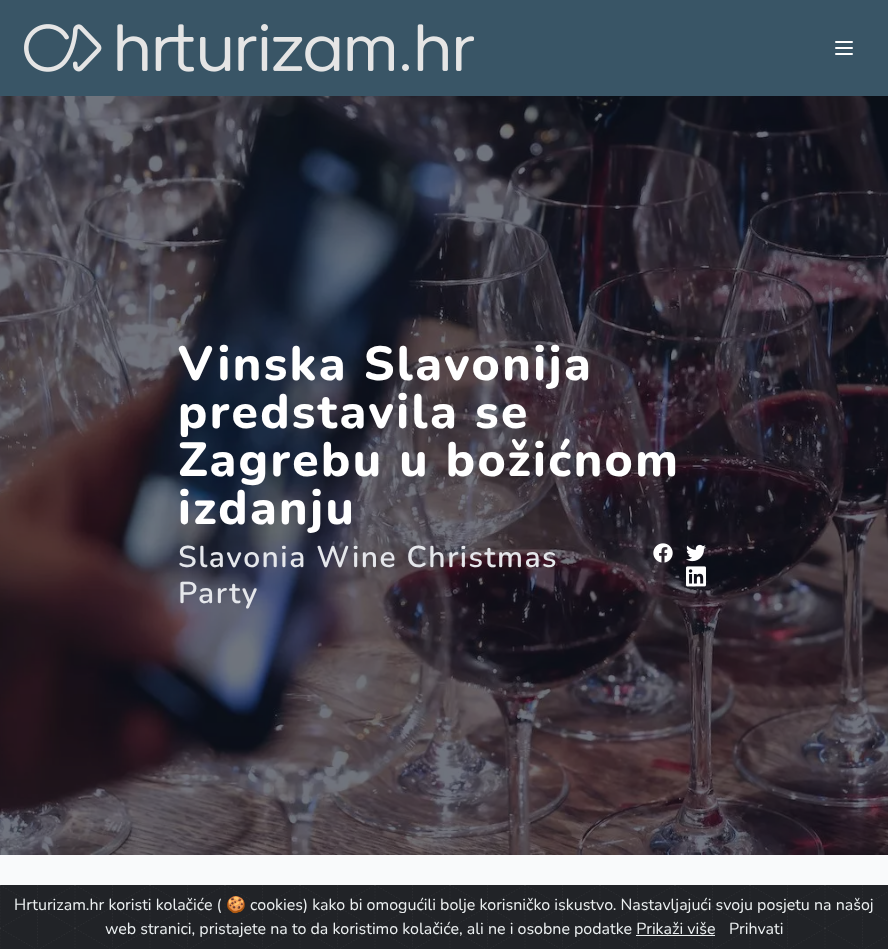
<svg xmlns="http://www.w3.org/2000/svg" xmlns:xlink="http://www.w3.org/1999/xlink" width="888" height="949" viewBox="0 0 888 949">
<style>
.cls-1{font:800 48px Nunito;letter-spacing:2.4px;fill:#ffffff}
.cls-2{font:600 30px Nunito;letter-spacing:1.5px;fill:#e5e7eb}
.cls-3{font:16px Nunito;fill:#ecf0f1}
.cls-4{font:16px Noto Color Emoji;fill:#ecf0f1}
</style>
<rect width="100%" height="100%" fill="#f9fafb"/>
<rect fill="#395566" x="0" y="0" width="888" height="96"/>
<image xlink:href="image0.png" x="24" y="24" width="450" height="48"/>
<path fill="none" stroke="#ffffff" stroke-width="2" stroke-linecap="round" stroke-linejoin="round" d="M836 42H852M836 48H852M836 54H852"/>
<image xlink:href="image1.png" x="0" y="96" width="888" height="759"/>
<image xlink:href="image2.png" x="653" y="543" width="20" height="20"/>
<image xlink:href="image3.png" x="686" y="544" width="20" height="18"/>
<image xlink:href="image4.png" x="686" y="566" width="20" height="21"/>
<rect fill="#212327" x="887" y="885" width="1" height="64"/>
<image xlink:href="image5.png" x="0" y="885" width="887" height="64"/>
<rect fill="#ecf0f1" x="636" y="935" width="79" height="1"/>
<text class="cls-1"><tspan x="178" y="380">Vinska Slavonija</tspan><tspan x="178" y="428">predstavila se</tspan><tspan x="178" y="476">Zagrebu u božićnom</tspan><tspan x="178" y="524">izdanju</tspan></text>
<text class="cls-2"><tspan x="178" y="567">Slavonia Wine Christmas</tspan><tspan x="178" y="603">Party</tspan></text>
<text class="cls-3" x="14" y="910">Hrturizam.hr koristi kolačiće (</text>
<text class="cls-4" x="226" y="910">🍪</text>
<text class="cls-3" x="250" y="910">cookies) kako bi omogućili bolje korisničko iskustvo. Nastavljajući svoju posjetu na našoj</text>
<text class="cls-3" x="105" y="934">web stranici, pristajete na to da koristimo kolačiće, ali ne i osobne podatke Prikaži više</text>
<text class="cls-3" x="729" y="934">Prihvati</text>
</svg>
